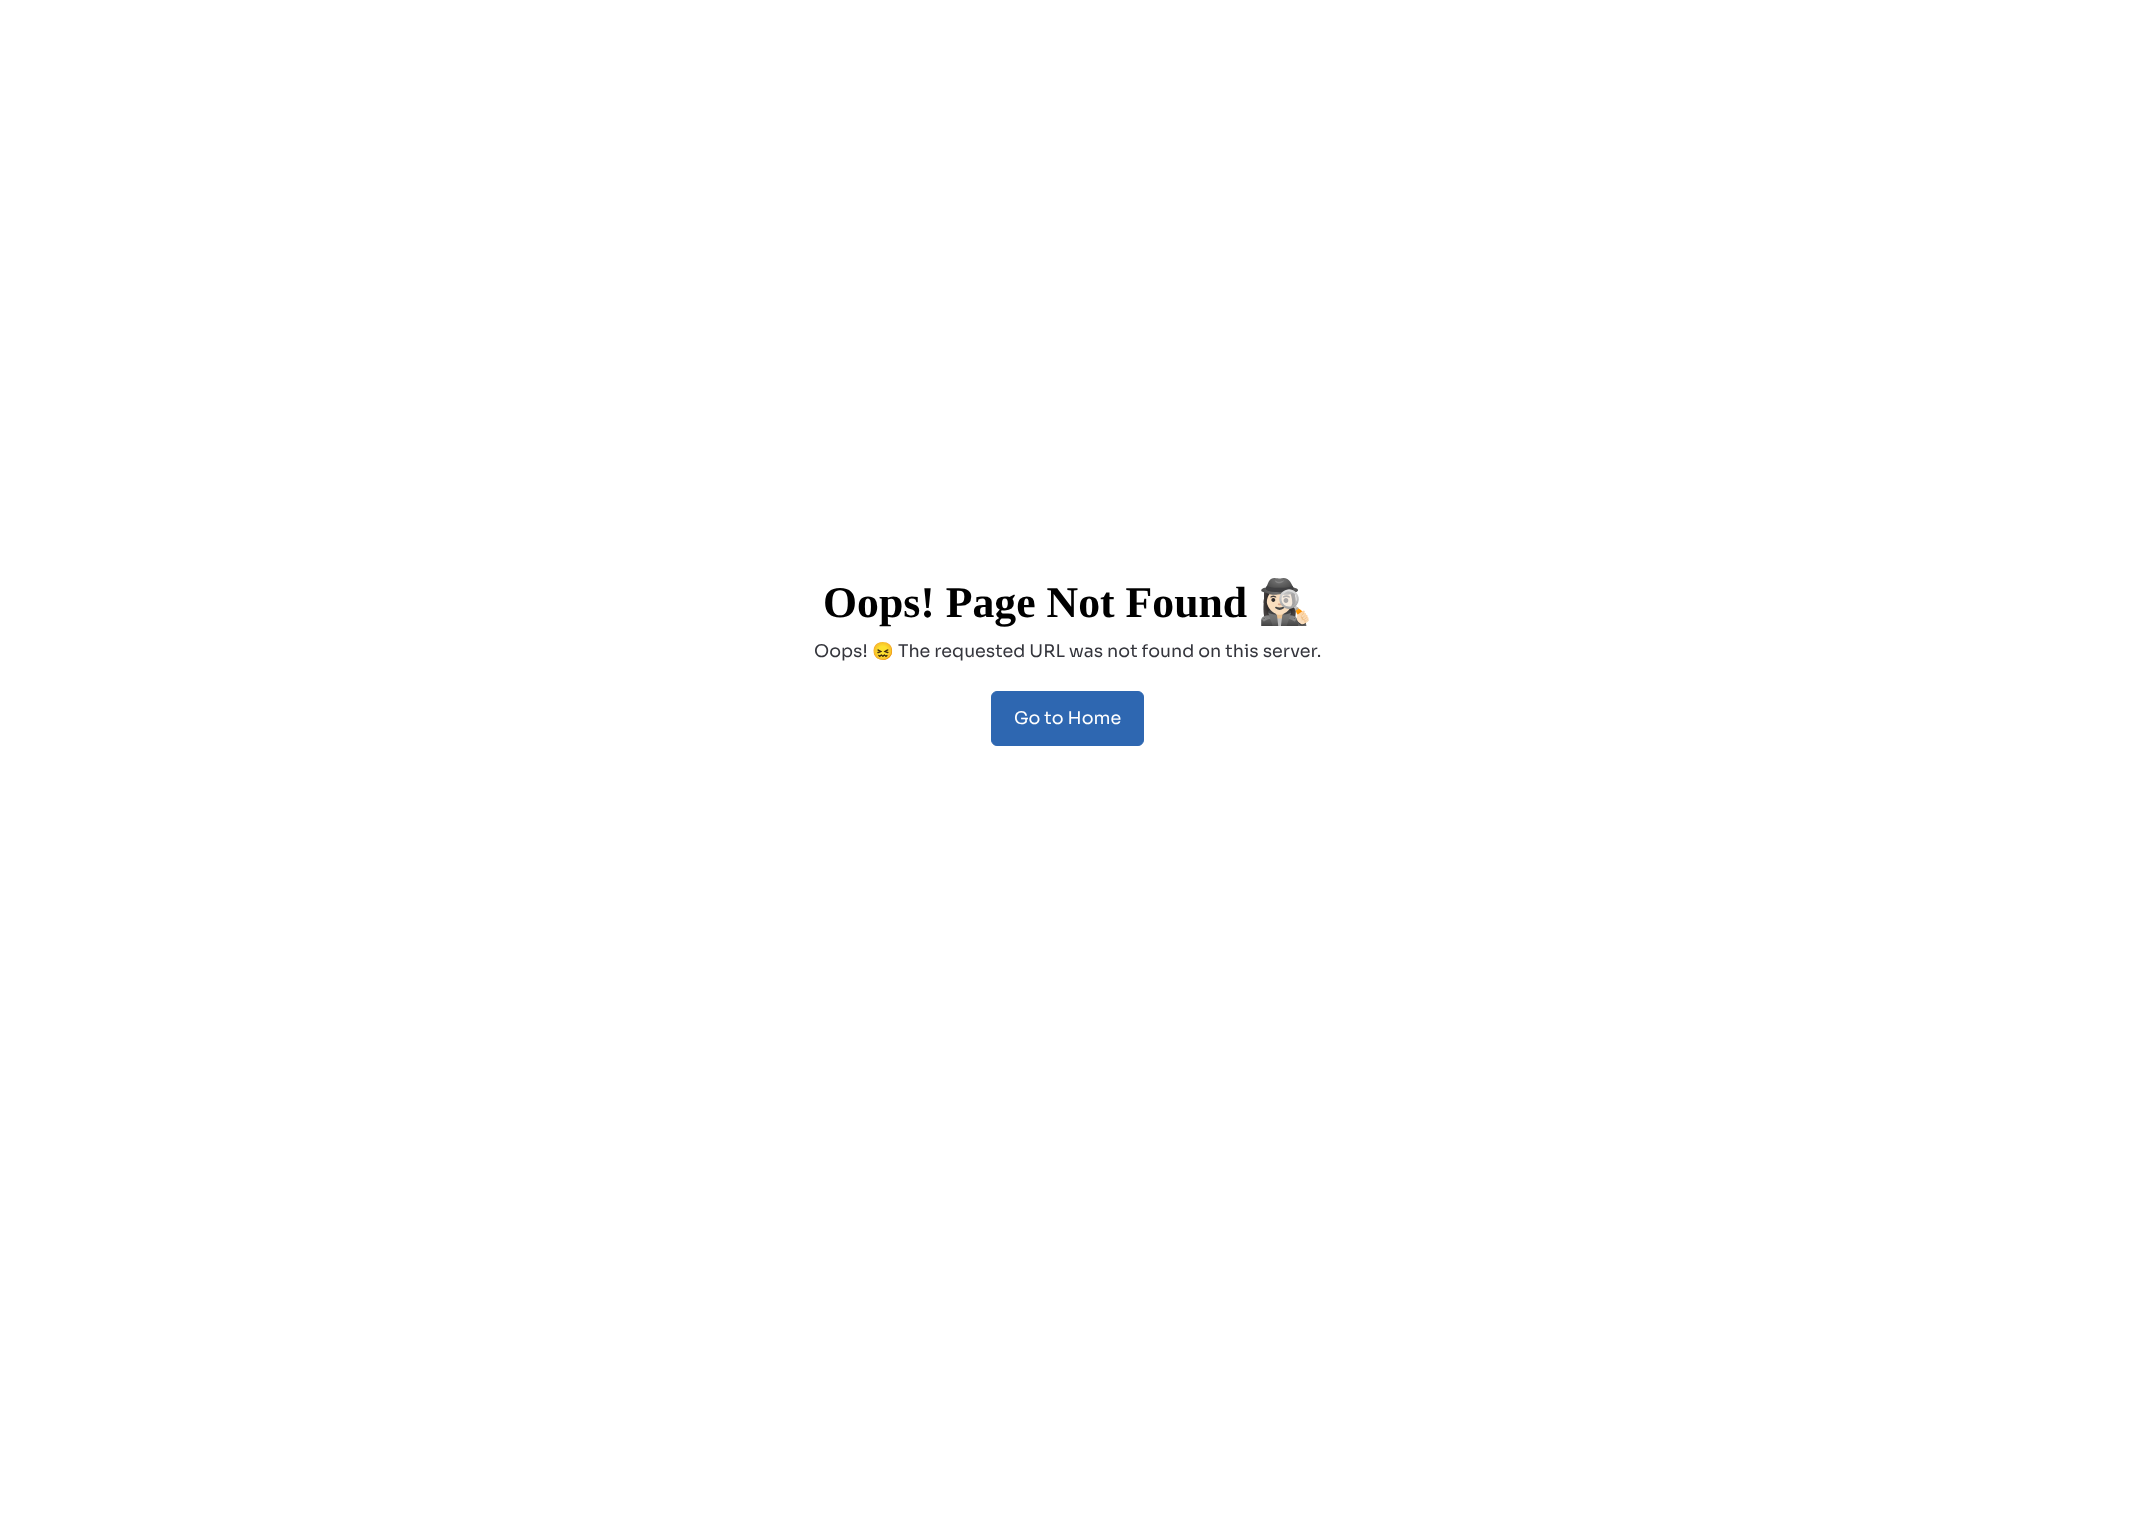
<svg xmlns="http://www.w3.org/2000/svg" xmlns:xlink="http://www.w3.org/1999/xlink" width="2135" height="1539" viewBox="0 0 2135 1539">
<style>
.cls-1{font:bold 43.75px Liberation Serif;fill:#000000}
.cls-2{font:bold 43.75px Noto Color Emoji;fill:#000000}
.cls-3{font:17.5px Sora;fill:#34353c}
.cls-4{font:17.5px Noto Color Emoji;fill:#34353c}
.cls-5{font:17.5px Sora;fill:#ffffff}
</style>
<rect width="100%" height="100%" fill="#ffffff"/>
<rect fill="#2e67b1" stroke="#2e67b1" x="991.5" y="691.5" width="152" height="54" rx="5.5"/>
<text class="cls-1" x="823" y="617">Oops! Page Not Found</text>
<text class="cls-2" x="1258" y="617">🕵🏻‍♀️</text>
<text class="cls-3" x="814" y="657">Oops!</text>
<text class="cls-4" x="872" y="657">😖</text>
<text class="cls-3" x="898" y="657">The requested URL was not found on this server.</text>
<text class="cls-5" x="1014" y="724">Go to Home</text>
</svg>
